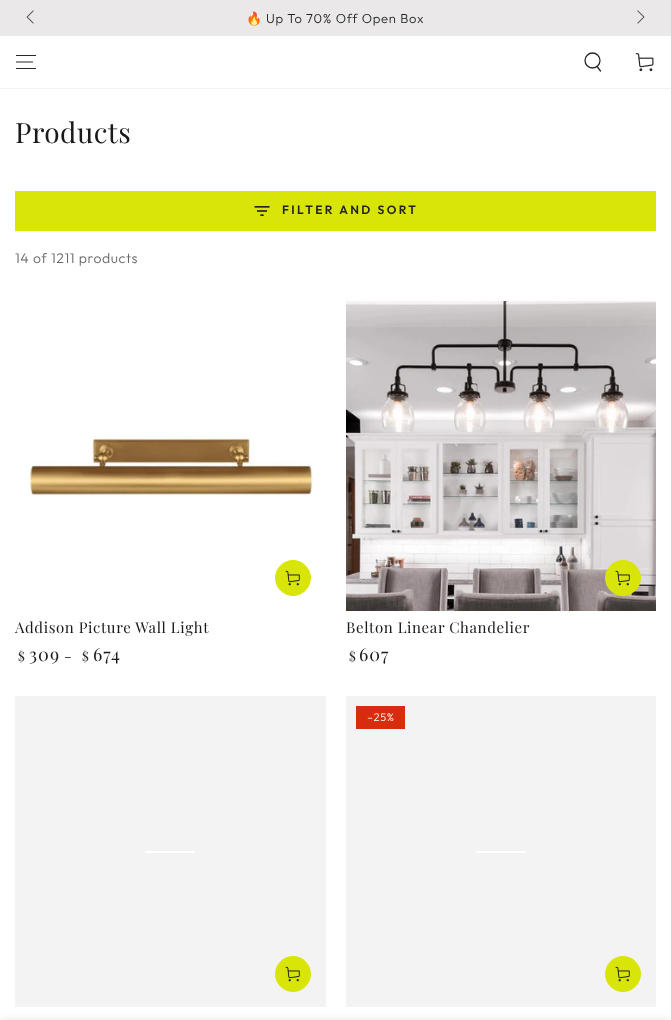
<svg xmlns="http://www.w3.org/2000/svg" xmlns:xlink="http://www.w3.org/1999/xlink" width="671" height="1020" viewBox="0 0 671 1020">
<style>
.cls-1{font:13px Noto Color Emoji;letter-spacing:0.75px;fill:#212326}
.cls-2{font:300 13px Outfit;letter-spacing:0.75px;fill:#212326}
.cls-3{font:28px Playfair Display;letter-spacing:0.5px;fill:#1a1b18}
.cls-4{font:600 12px Outfit;letter-spacing:2.4px;fill:#212326}
.cls-5{font:300 14px Outfit;letter-spacing:0.6px;fill:#646567}
.cls-6{font:15px Playfair Display;letter-spacing:0.6px;fill:#1a1b18}
.cls-7{font:13px Playfair Display;letter-spacing:1px;fill:#1a1b18}
.cls-8{font:18px Playfair Display;letter-spacing:1px;fill:#1a1b18}
.cls-9{font:300 14px Outfit;letter-spacing:1px;fill:#1a1b18}
.cls-10{font:300 11px Outfit;letter-spacing:0.6px;fill:#ffffff}
</style>
<rect width="100%" height="100%" fill="#ffffff"/>
<rect fill="#eae8e9" x="0" y="0" width="671" height="36"/>
<image xlink:href="image0.png" x="26" y="10" width="8" height="14"/>
<image xlink:href="image1.png" x="637" y="10" width="8" height="14"/>
<rect fill="#f2f2f4" x="0" y="88" width="671" height="1"/>
<path fill="none" stroke="#282828" stroke-width="1.1" d="M16 68.5H36M16 62H33M16 55.5H36"/>
<circle fill="none" stroke="#282828" stroke-width="1.3" cx="592.5" cy="60.5" r="7.5"/>
<path fill="none" stroke="#282828" stroke-width="1.3" stroke-linecap="round" d="M597 66.5L600.5 71"/>
<image xlink:href="image2.png" x="635" y="53" width="19" height="19"/>
<rect fill="#d9e508" x="15" y="191" width="641" height="40"/>
<image xlink:href="image3.png" x="254" y="206" width="16" height="10"/>
<image xlink:href="image4.png" x="28" y="435" width="285" height="61"/>
<circle fill="#d9e508" stroke="#d9e508" cx="293" cy="578" r="17.5"/>
<image xlink:href="image5.png" x="285" y="570" width="15" height="16"/>
<image xlink:href="image6.png" x="346" y="301" width="310" height="310"/>
<circle fill="#d9e508" stroke="#d9e508" cx="623" cy="578" r="17.5"/>
<image xlink:href="image5.png" x="615" y="570" width="15" height="16"/>
<rect fill="#f3f3f3" x="15" y="696" width="311" height="311"/>
<rect fill="#ffffff" x="145" y="851" width="50" height="2"/>
<circle fill="#d9e508" stroke="#d9e508" cx="293" cy="974" r="17.5"/>
<image xlink:href="image5.png" x="285" y="966" width="15" height="16"/>
<rect fill="#f3f3f3" x="346" y="696" width="310" height="311"/>
<rect fill="#ffffff" x="476" y="851" width="50" height="2"/>
<rect fill="#d72c0d" x="356" y="706" width="49" height="23"/>
<circle fill="#d9e508" stroke="#d9e508" cx="623" cy="974" r="17.5"/>
<image xlink:href="image5.png" x="615" y="966" width="15" height="16"/>
<rect fill="#212326" fill-opacity="0.15" filter="blur(4px)" x="0" y="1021" width="671" height="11"/>
<text class="cls-1" x="246" y="23">🔥</text>
<text class="cls-2" x="266" y="23">Up To 70% Off Open Box</text>
<text class="cls-3" x="15" y="143">Products</text>
<text class="cls-4" x="282" y="214">FILTER AND SORT</text>
<text class="cls-5" x="15" y="263">14 of 1211 products</text>
<text class="cls-6" x="15" y="633">Addison Picture Wall Light</text>
<text class="cls-7" x="18" y="661">$</text>
<text class="cls-8" x="29" y="661">309</text>
<text class="cls-9" x="64" y="661">–</text>
<text class="cls-7" x="82" y="661">$</text>
<text class="cls-8" x="93" y="661">674</text>
<text class="cls-6" x="346" y="633">Belton Linear Chandelier</text>
<text class="cls-7" x="349" y="661">$</text>
<text class="cls-8" x="359" y="661">607</text>
<text class="cls-10" x="367" y="721">–25%</text>
</svg>
